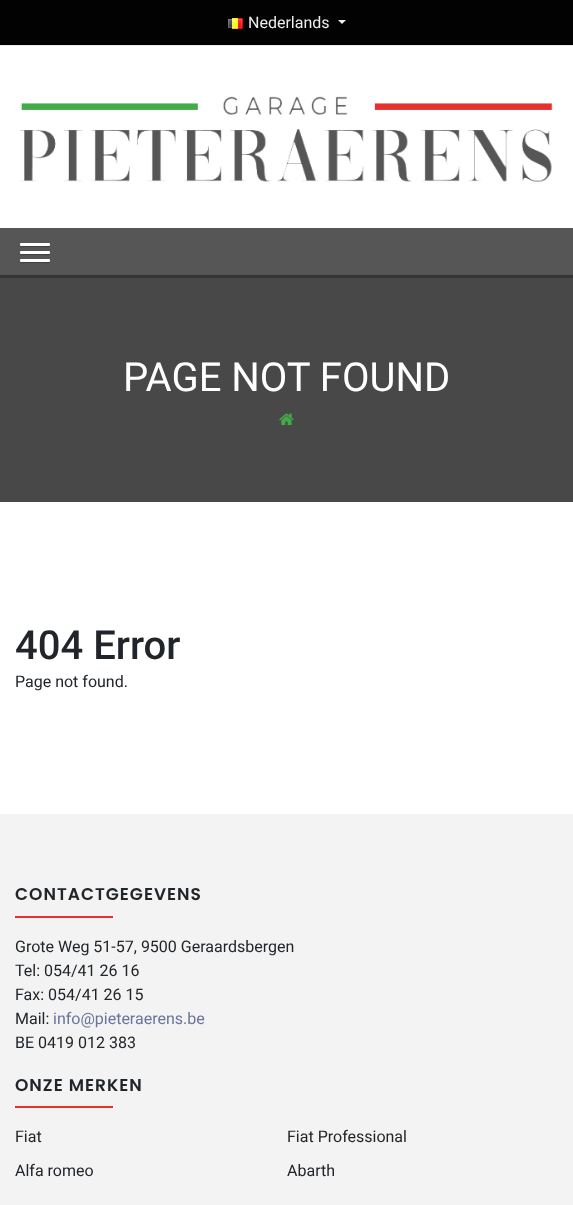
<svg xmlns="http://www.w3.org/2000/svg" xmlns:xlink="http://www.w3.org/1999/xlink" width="573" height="1205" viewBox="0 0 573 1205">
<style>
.cls-1{font:16px Roboto;fill:#eeeeee}
.cls-2{font:40px Roboto;fill:#ffffff}
.cls-3{font:500 40px Roboto;fill:#212529}
.cls-4{font:16px Roboto;fill:#212529}
.cls-5{font:600 17px Poppins;letter-spacing:1px;fill:#212529}
.cls-6{font:16px Roboto;fill:#6b739c}
</style>
<rect width="100%" height="100%" fill="#ffffff"/>
<rect fill="#020202" x="0" y="0" width="573" height="45"/>
<rect fill="#eeeeee" x="0" y="45" width="573" height="1"/>
<image xlink:href="image0.png" x="228" y="18" width="15" height="11"/>
<path fill="#eeeeee" d="M338 20H346L342 24Z"/>
<image xlink:href="image1.png" x="19" y="96" width="534" height="87"/>
<rect fill="#575656" x="0" y="228" width="573" height="47"/>
<rect fill="#363636" x="0" y="275" width="573" height="3"/>
<path fill="#414141" d="M20 245C20 248.5 22.5 247 25.5 247H44.5C47.5 247 50 248.5 50 245L49.5 246H20.5Z"/>
<rect fill="#ffffff" x="20" y="243" width="30" height="3" rx="1"/>
<path fill="#414141" d="M20 253C20 256.5 22.5 255 25.5 255H44.5C47.5 255 50 256.5 50 253L49.5 254H20.5Z"/>
<rect fill="#ffffff" x="20" y="251" width="30" height="3" rx="1"/>
<path fill="#414141" d="M20 261C20 264.5 22.5 263 25.5 263H44.5C47.5 263 50 264.5 50 261L49.5 262H20.5Z"/>
<rect fill="#ffffff" x="20" y="259" width="30" height="3" rx="1"/>
<rect fill="#484848" x="0" y="278" width="573" height="224"/>
<image xlink:href="image2.png" x="279" y="413" width="15" height="12"/>
<rect fill="#f3f3f3" x="0" y="814" width="573" height="391"/>
<rect fill="#e6302e" x="15" y="916" width="98" height="2"/>
<rect fill="#e6302e" x="15" y="1106" width="98" height="2"/>
<text class="cls-1" x="248" y="28">Nederlands</text>
<text class="cls-2" x="123" y="391">PAGE NOT FOUND</text>
<text class="cls-3" x="15" y="659">404 Error</text>
<text class="cls-4" x="15" y="687">Page not found.</text>
<text class="cls-5" x="15" y="900">CONTACTGEGEVENS</text>
<text class="cls-4"><tspan x="15" y="952">Grote Weg 51-57, 9500 Geraardsbergen</tspan><tspan x="15" y="976">Tel: 054/41 26 16</tspan><tspan x="15" y="1000">Fax: 054/41 26 15</tspan><tspan x="15" y="1024">Mail:</tspan></text>
<text class="cls-6" x="53" y="1024">info@pieteraerens.be</text>
<text class="cls-4" x="15" y="1048">BE 0419 012 383</text>
<text class="cls-5" x="15" y="1091">ONZE MERKEN</text>
<text class="cls-4" x="15" y="1142">Fiat</text>
<text class="cls-4" x="287" y="1142">Fiat Professional</text>
<text class="cls-4" x="15" y="1176">Alfa romeo</text>
<text class="cls-4" x="287" y="1176">Abarth</text>
</svg>
